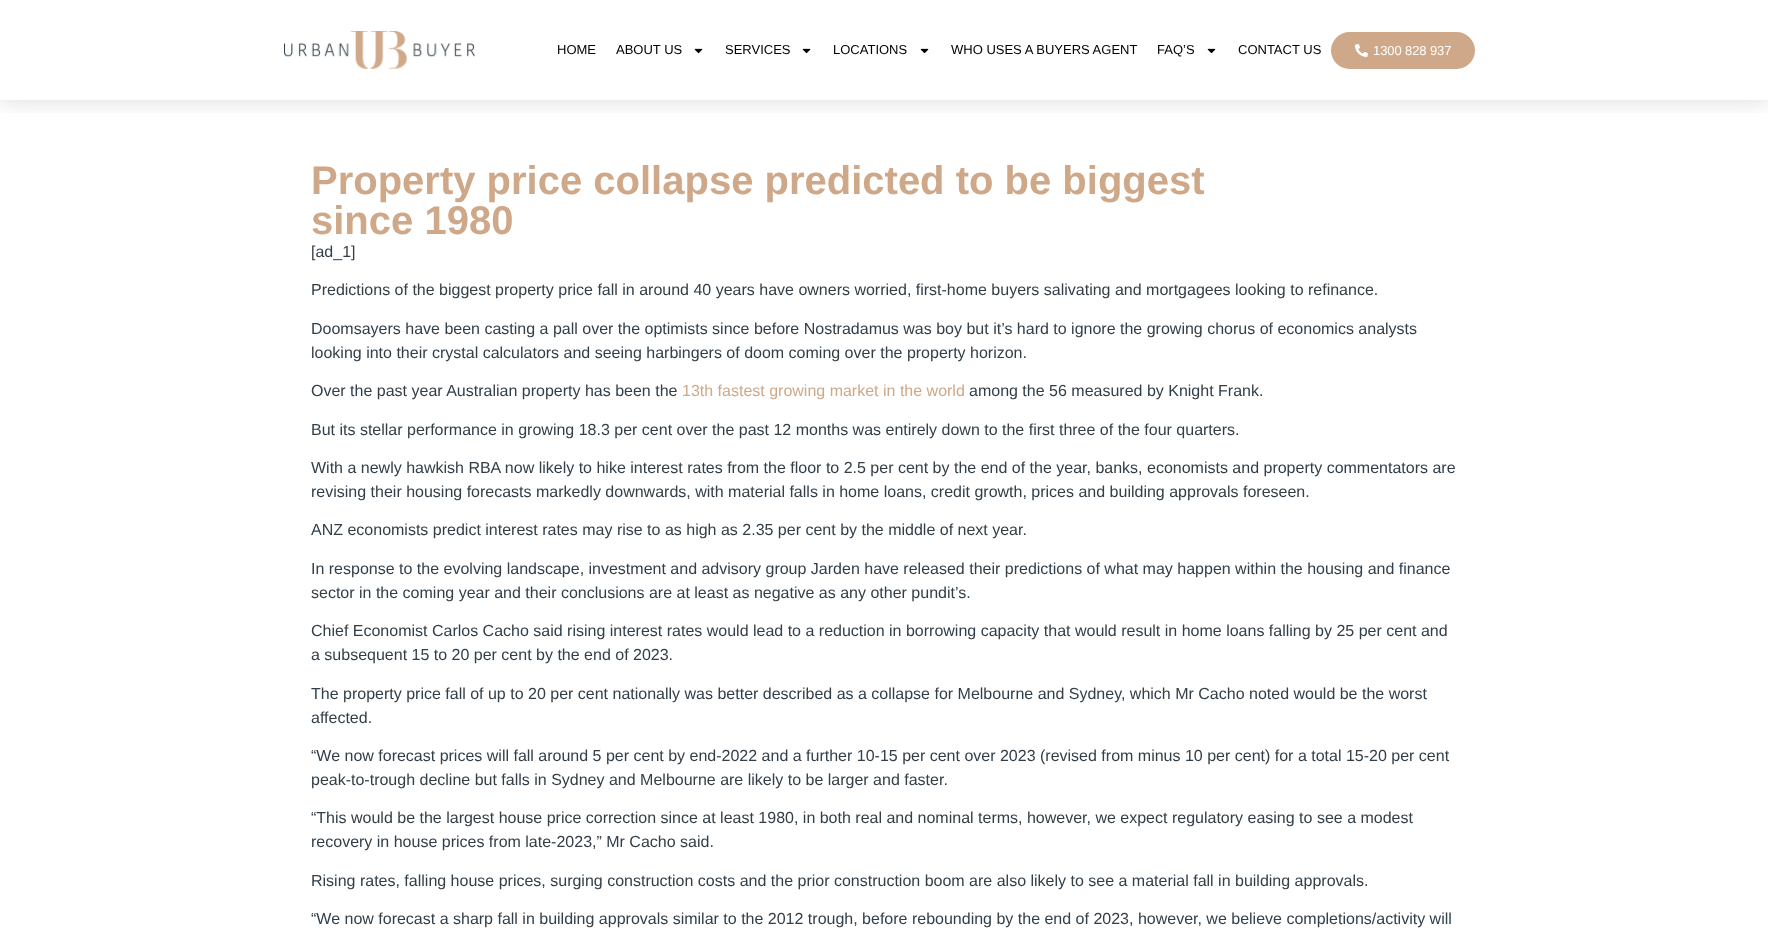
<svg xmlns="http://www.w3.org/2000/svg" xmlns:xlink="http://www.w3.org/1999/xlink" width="1768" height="937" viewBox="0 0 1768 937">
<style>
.cls-1{font:13px Liberation Sans;fill:#000000}
.cls-2{font:13px Liberation Sans;letter-spacing:-0.1px;fill:#ffffff}
.cls-3{font:bold 40px Liberation Sans;fill:#cea888}
.cls-4{font:16px Liberation Sans;fill:#323e48}
.cls-5{font:16px Liberation Sans;fill:#cea888}
</style>
<defs>
<clipPath id="clip1"><rect x="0" y="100" width="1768" height="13"/></clipPath>
</defs>
<rect width="100%" height="100%" fill="#ffffff"/>
<g clip-path="url(#clip1)">
<rect fill="#000000" fill-opacity="0.15" filter="blur(12px)" x="0" y="0" width="1768" height="100"/>
</g>
<image xlink:href="image0.png" x="284" y="31" width="191" height="38"/>
<image xlink:href="image1.png" x="694" y="48" width="9" height="6"/>
<image xlink:href="image1.png" x="802" y="48" width="9" height="6"/>
<image xlink:href="image1.png" x="920" y="48" width="9" height="6"/>
<image xlink:href="image1.png" x="1207" y="48" width="9" height="6"/>
<rect fill="#cea888" x="1331" y="32" width="144" height="37" rx="18.5"/>
<image xlink:href="image2.png" x="1355" y="44" width="13" height="13"/>
<text class="cls-1" x="557" y="54">HOME</text>
<text class="cls-1" x="616" y="54">ABOUT US</text>
<text class="cls-1" x="725" y="54">SERVICES</text>
<text class="cls-1" x="833" y="54">LOCATIONS</text>
<text class="cls-1" x="951" y="54">WHO USES A BUYERS AGENT</text>
<text class="cls-1" x="1157" y="54">FAQ’S</text>
<text class="cls-1" x="1238" y="54">CONTACT US</text>
<text class="cls-2" x="1373" y="55">1300 828 937</text>
<text class="cls-3"><tspan x="311" y="194">Property price collapse predicted to be biggest</tspan><tspan x="311" y="234">since 1980</tspan></text>
<text class="cls-4" x="311" y="257">[ad_1]</text>
<text class="cls-4" x="311" y="295">Predictions of the biggest property price fall in around 40 years have owners worried, first-home buyers salivating and mortgagees looking to refinance.</text>
<text class="cls-4"><tspan x="311" y="334">Doomsayers have been casting a pall over the optimists since before Nostradamus was boy but it’s hard to ignore the growing chorus of economics analysts</tspan><tspan x="311" y="358">looking into their crystal calculators and seeing harbingers of doom coming over the property horizon.</tspan></text>
<text class="cls-4" x="311" y="396">Over the past year Australian property has been the</text>
<text class="cls-5" x="682" y="396">13th fastest growing market in the world</text>
<text class="cls-4" x="969" y="396">among the 56 measured by Knight Frank.</text>
<text class="cls-4" x="311" y="435">But its stellar performance in growing 18.3 per cent over the past 12 months was entirely down to the first three of the four quarters.</text>
<text class="cls-4"><tspan x="311" y="473">With a newly hawkish RBA now likely to hike interest rates from the floor to 2.5 per cent by the end of the year, banks, economists and property commentators are</tspan><tspan x="311" y="497">revising their housing forecasts markedly downwards, with material falls in home loans, credit growth, prices and building approvals foreseen.</tspan></text>
<text class="cls-4" x="311" y="535">ANZ economists predict interest rates may rise to as high as 2.35 per cent by the middle of next year.</text>
<text class="cls-4"><tspan x="311" y="574">In response to the evolving landscape, investment and advisory group Jarden have released their predictions of what may happen within the housing and finance</tspan><tspan x="311" y="598">sector in the coming year and their conclusions are at least as negative as any other pundit’s.</tspan></text>
<text class="cls-4"><tspan x="311" y="636">Chief Economist Carlos Cacho said rising interest rates would lead to a reduction in borrowing capacity that would result in home loans falling by 25 per cent and</tspan><tspan x="311" y="660">a subsequent 15 to 20 per cent by the end of 2023.</tspan></text>
<text class="cls-4"><tspan x="311" y="699">The property price fall of up to 20 per cent nationally was better described as a collapse for Melbourne and Sydney, which Mr Cacho noted would be the worst</tspan><tspan x="311" y="723">affected.</tspan></text>
<text class="cls-4"><tspan x="311" y="761">“We now forecast prices will fall around 5 per cent by end-2022 and a further 10-15 per cent over 2023 (revised from minus 10 per cent) for a total 15-20 per cent</tspan><tspan x="311" y="785">peak-to-trough decline but falls in Sydney and Melbourne are likely to be larger and faster.</tspan></text>
<text class="cls-4"><tspan x="311" y="823">“This would be the largest house price correction since at least 1980, in both real and nominal terms, however, we expect regulatory easing to see a modest</tspan><tspan x="311" y="847">recovery in house prices from late-2023,” Mr Cacho said.</tspan></text>
<text class="cls-4" x="311" y="886">Rising rates, falling house prices, surging construction costs and the prior construction boom are also likely to see a material fall in building approvals.</text>
<text class="cls-4" x="311" y="924">“We now forecast a sharp fall in building approvals similar to the 2012 trough, before rebounding by the end of 2023, however, we believe completions/activity will</text>
</svg>
